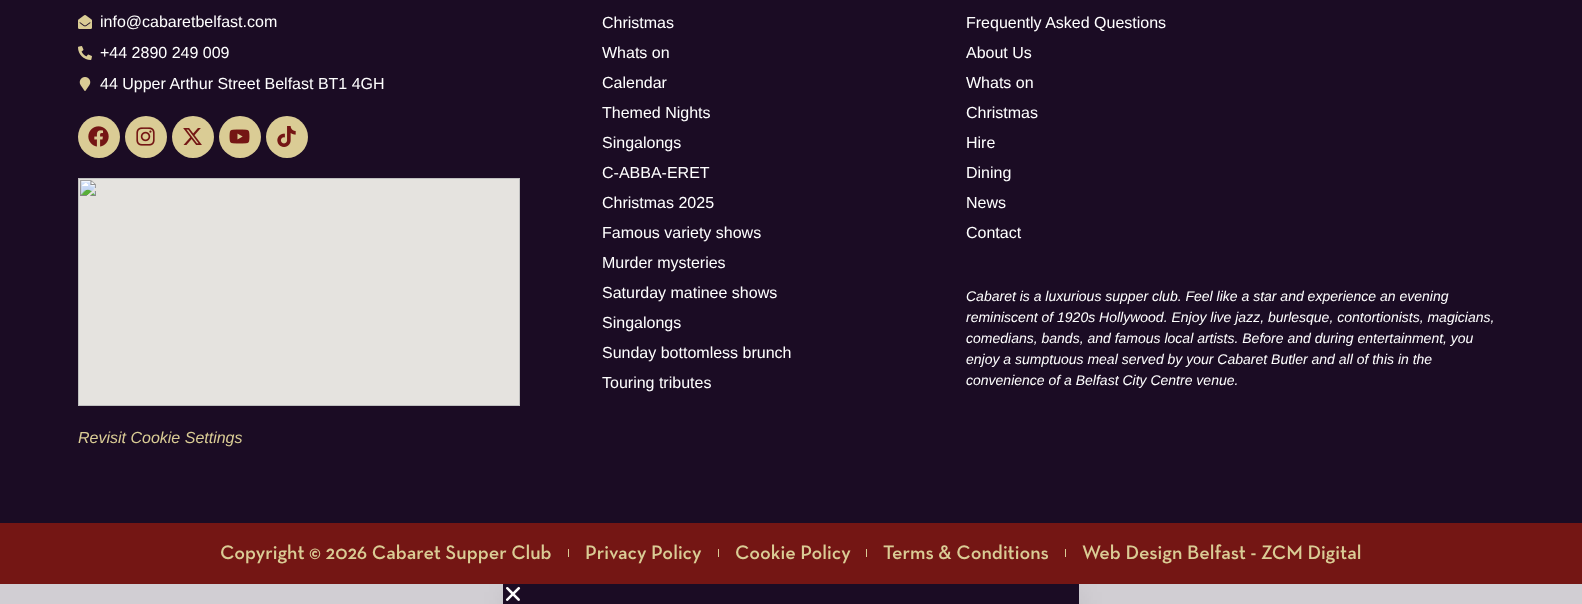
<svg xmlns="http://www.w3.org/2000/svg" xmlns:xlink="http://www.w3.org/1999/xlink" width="1582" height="604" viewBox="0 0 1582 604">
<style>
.cls-1{font:16px Liberation Sans;fill:#ffffff}
.cls-2{font:italic 16px Liberation Sans;fill:#dacc95}
.cls-3{font:italic 14px Liberation Sans;fill:#ffffff}
.cls-4{font:600 20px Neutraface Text;fill:#dacc95}
</style>
<rect width="100%" height="100%" fill="#1b0c24"/>
<image xlink:href="image0.png" x="78" y="15" width="14" height="14"/>
<image xlink:href="image1.png" x="78" y="46" width="14" height="14"/>
<image xlink:href="image2.png" x="79" y="77" width="12" height="14"/>
<circle fill="#dacc95" cx="99" cy="137" r="21"/>
<image xlink:href="image3.png" x="88" y="126" width="21" height="21"/>
<circle fill="#dacc95" cx="146" cy="137" r="21"/>
<image xlink:href="image4.png" x="136" y="127" width="19" height="19"/>
<circle fill="#dacc95" cx="193" cy="137" r="21"/>
<image xlink:href="image5.png" x="183" y="128" width="19" height="17"/>
<circle fill="#dacc95" cx="240" cy="137" r="21"/>
<image xlink:href="image6.png" x="229" y="129" width="21" height="15"/>
<circle fill="#dacc95" cx="287" cy="137" r="21"/>
<image xlink:href="image7.png" x="277" y="126" width="19" height="21"/>
<image xlink:href="image8.png" x="78" y="178" width="442" height="228"/>
<rect fill="#d1ced3" x="0" y="584" width="1582" height="20"/>
<rect fill="#000000" fill-opacity="0.07" filter="blur(11.5px)" x="505" y="592" width="576" height="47"/>
<rect fill="#741614" x="0" y="523" width="1582" height="61"/>
<rect fill="#dacc95" x="568" y="549" width="1" height="8"/>
<rect fill="#dacc95" x="718" y="549" width="1" height="8"/>
<rect fill="#dacc95" x="866" y="549" width="1" height="8"/>
<rect fill="#dacc95" x="1065" y="549" width="1" height="8"/>
<rect fill="#1b0c24" x="503" y="584" width="576" height="20"/>
<image xlink:href="image9.png" x="505" y="586" width="16" height="15"/>
<text class="cls-1"><tspan x="100" y="27">info@cabaretbelfast.com</tspan><tspan x="100" y="58">+44 2890 249 009</tspan><tspan x="100" y="89">44 Upper Arthur Street Belfast BT1 4GH</tspan></text>
<text class="cls-2" x="78" y="443">Revisit Cookie Settings</text>
<text class="cls-1"><tspan x="602" y="28">Christmas</tspan><tspan x="602" y="58">Whats on</tspan><tspan x="602" y="88">Calendar</tspan><tspan x="602" y="118">Themed Nights</tspan><tspan x="602" y="148">Singalongs</tspan><tspan x="602" y="178">C-ABBA-ERET</tspan><tspan x="602" y="208">Christmas 2025</tspan><tspan x="602" y="238">Famous variety shows</tspan><tspan x="602" y="268">Murder mysteries</tspan><tspan x="602" y="298">Saturday matinee shows</tspan><tspan x="602" y="328">Singalongs</tspan><tspan x="602" y="358">Sunday bottomless brunch</tspan><tspan x="602" y="388">Touring tributes</tspan></text>
<text class="cls-1"><tspan x="966" y="28">Frequently Asked Questions</tspan><tspan x="966" y="58">About Us</tspan><tspan x="966" y="88">Whats on</tspan><tspan x="966" y="118">Christmas</tspan><tspan x="966" y="148">Hire</tspan><tspan x="966" y="178">Dining</tspan><tspan x="966" y="208">News</tspan><tspan x="966" y="238">Contact</tspan></text>
<text class="cls-3"><tspan x="966" y="301">Cabaret is a luxurious supper club. Feel like a star and experience an evening</tspan><tspan x="966" y="322">reminiscent of 1920s Hollywood. Enjoy live jazz, burlesque, contortionists, magicians,</tspan><tspan x="966" y="343">comedians, bands, and famous local artists. Before and during entertainment, you</tspan><tspan x="966" y="364">enjoy a sumptuous meal served by your Cabaret Butler and all of this in the</tspan><tspan x="966" y="385">convenience of a Belfast City Centre venue.</tspan></text>
<text class="cls-4" x="220" y="559">Copyright © 2026 Cabaret Supper Club</text>
<text class="cls-4" x="585" y="559">Privacy Policy</text>
<text class="cls-4" x="735" y="559">Cookie Policy</text>
<text class="cls-4" x="883" y="559">Terms &amp; Conditions</text>
<text class="cls-4" x="1082" y="559">Web Design Belfast - ZCM Digital</text>
</svg>
